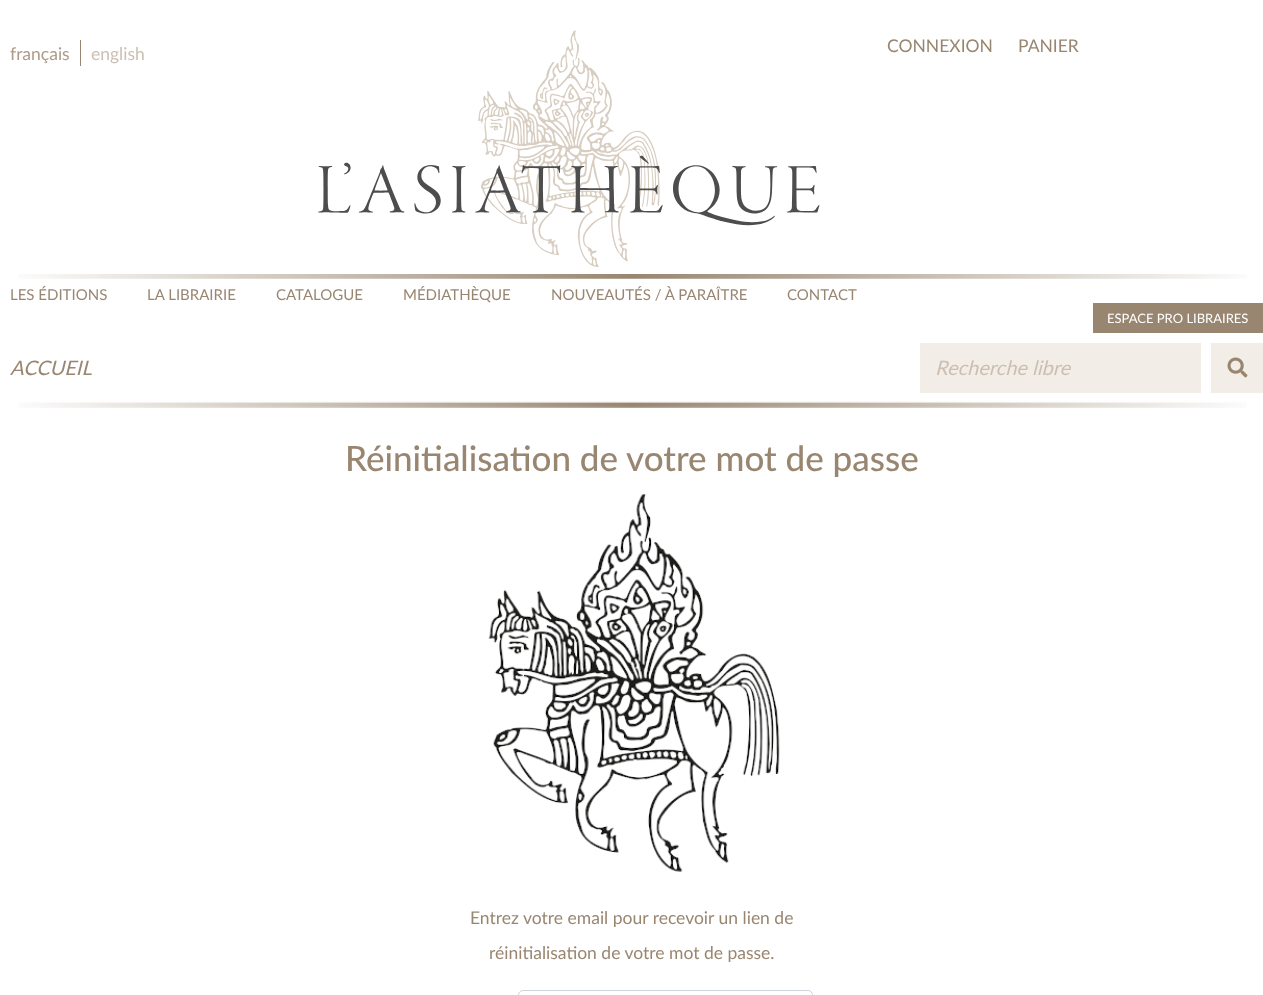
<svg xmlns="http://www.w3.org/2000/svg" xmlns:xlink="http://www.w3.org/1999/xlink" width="1263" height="995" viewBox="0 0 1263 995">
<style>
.cls-1{font:17.5px Lato;fill:#ad9a86}
.cls-2{font:17.5px Lato;fill:#ccbfb2}
.cls-3{font:17.5px Lato;fill:#998671}
.cls-4{font:15px Lato;fill:#998671}
.cls-5{font:13px Lato;fill:#ffffff}
.cls-6{font:italic 20px Lato;fill:#998671}
.cls-7{font:italic 20px Lato;fill:#ccbfb2}
.cls-8{font:500 35px Lato;fill:#998671}
</style>
<rect width="100%" height="100%" fill="#ffffff"/>
<rect fill="#998671" x="80" y="40" width="1" height="26"/>
<image xlink:href="image0.png" x="318" y="30" width="502" height="237"/>
<image xlink:href="image1.png" x="18" y="274" width="1229" height="134"/>
<rect fill="#998671" x="1093" y="303" width="170" height="30"/>
<rect fill="#f2eee7" x="920" y="343" width="281" height="50"/>
<rect fill="#f2eee7" x="1211" y="343" width="52" height="50"/>
<image xlink:href="image2.png" x="1227" y="357" width="21" height="21"/>
<image xlink:href="image3.png" x="488" y="494" width="292" height="378"/>
<rect fill="none" stroke="#ced4da" x="518.5" y="990.5" width="294" height="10" rx="4.5"/>
<text class="cls-1" x="10" y="60">français</text>
<text class="cls-2" x="91" y="60">english</text>
<text class="cls-3" x="887" y="52">CONNEXION</text>
<text class="cls-3" x="1018" y="52">PANIER</text>
<text class="cls-4" x="10" y="300">LES ÉDITIONS</text>
<text class="cls-4" x="147" y="300">LA LIBRAIRIE</text>
<text class="cls-4" x="276" y="300">CATALOGUE</text>
<text class="cls-4" x="403" y="300">MÉDIATHÈQUE</text>
<text class="cls-4" x="551" y="300">NOUVEAUTÉS / À PARAÎTRE</text>
<text class="cls-4" x="787" y="300">CONTACT</text>
<text class="cls-5" x="1107" y="323">ESPACE PRO LIBRAIRES</text>
<text class="cls-6" x="10" y="375">ACCUEIL</text>
<text class="cls-7" x="935" y="375">Recherche libre</text>
<text class="cls-8" x="345" y="471">Réinitialisation de votre mot de passe</text>
<text class="cls-3" x="470" y="924">Entrez votre email pour recevoir un lien de</text>
<text class="cls-3" x="489" y="959">réinitialisation de votre mot de passe.</text>
</svg>
